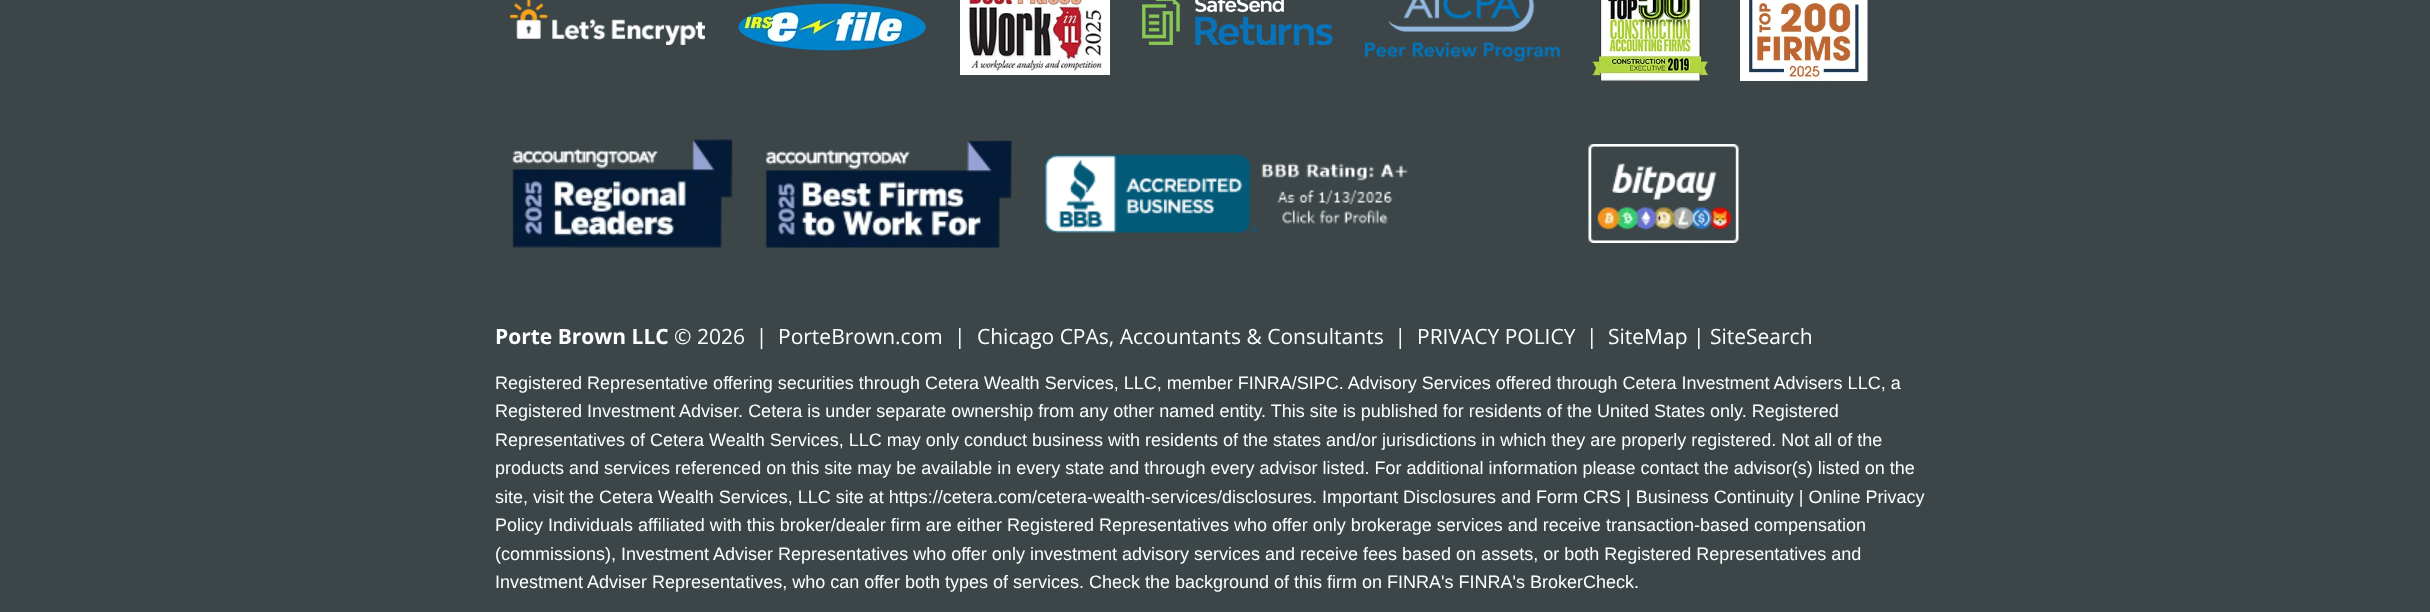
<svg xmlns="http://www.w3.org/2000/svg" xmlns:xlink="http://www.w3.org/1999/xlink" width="2430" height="612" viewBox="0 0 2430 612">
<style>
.cls-1{font:bold 21px Open Sans;fill:#ffffff}
.cls-2{font:21px Open Sans;fill:#ffffff}
.cls-3{font:18px Liberation Sans;fill:#ffffff}
</style>
<rect width="100%" height="100%" fill="#3c4648"/>
<image xlink:href="image0.png" x="510" y="0" width="195" height="45"/>
<image xlink:href="image1.png" x="738" y="3" width="188" height="48"/>
<image xlink:href="image2.png" x="960" y="0" width="150" height="75"/>
<image xlink:href="image3.png" x="1142" y="0" width="191" height="45"/>
<image xlink:href="image4.png" x="1365" y="0" width="195" height="62"/>
<image xlink:href="image5.png" x="1592" y="0" width="116" height="81"/>
<image xlink:href="image6.png" x="1740" y="0" width="128" height="81"/>
<image xlink:href="image7.png" x="512" y="139" width="221" height="109"/>
<image xlink:href="image8.png" x="765" y="140" width="248" height="108"/>
<image xlink:href="image9.png" x="1044" y="154" width="364" height="79"/>
<image xlink:href="image10.png" x="1588" y="144" width="151" height="99"/>
<text class="cls-1" x="495" y="344">Porte Brown LLC</text>
<text class="cls-2" xml:space="preserve" x="674" y="344">© 2026  |</text>
<text class="cls-2" x="778" y="344">PorteBrown.com</text>
<text class="cls-2" x="954" y="344">|</text>
<text class="cls-2" xml:space="preserve" x="977" y="344">Chicago CPAs, Accountants &amp; Consultants  |</text>
<text class="cls-2" x="1417" y="344">PRIVACY POLICY</text>
<text class="cls-2" x="1586" y="344">|</text>
<text class="cls-2" x="1608" y="344">SiteMap | SiteSearch</text>
<text class="cls-3"><tspan x="495" y="389">Registered Representative offering securities through Cetera Wealth Services, LLC, member FINRA/SIPC. Advisory Services offered through Cetera Investment Advisers LLC, a</tspan><tspan x="495" y="417">Registered Investment Adviser. Cetera is under separate ownership from any other named entity. This site is published for residents of the United States only. Registered</tspan><tspan x="495" y="446">Representatives of Cetera Wealth Services, LLC may only conduct business with residents of the states and/or jurisdictions in which they are properly registered. Not all of the</tspan><tspan x="495" y="474">products and services referenced on this site may be available in every state and through every advisor listed. For additional information please contact the advisor(s) listed on the</tspan><tspan x="495" y="503">site, visit the Cetera Wealth Services, LLC site at https://cetera.com/cetera-wealth-services/disclosures. Important Disclosures and Form CRS | Business Continuity | Online Privacy</tspan><tspan x="495" y="531">Policy Individuals affiliated with this broker/dealer firm are either Registered Representatives who offer only brokerage services and receive transaction-based compensation</tspan><tspan x="495" y="560">(commissions), Investment Adviser Representatives who offer only investment advisory services and receive fees based on assets, or both Registered Representatives and</tspan><tspan x="495" y="588">Investment Adviser Representatives, who can offer both types of services. Check the background of this firm on FINRA's FINRA's BrokerCheck.</tspan></text>
</svg>
